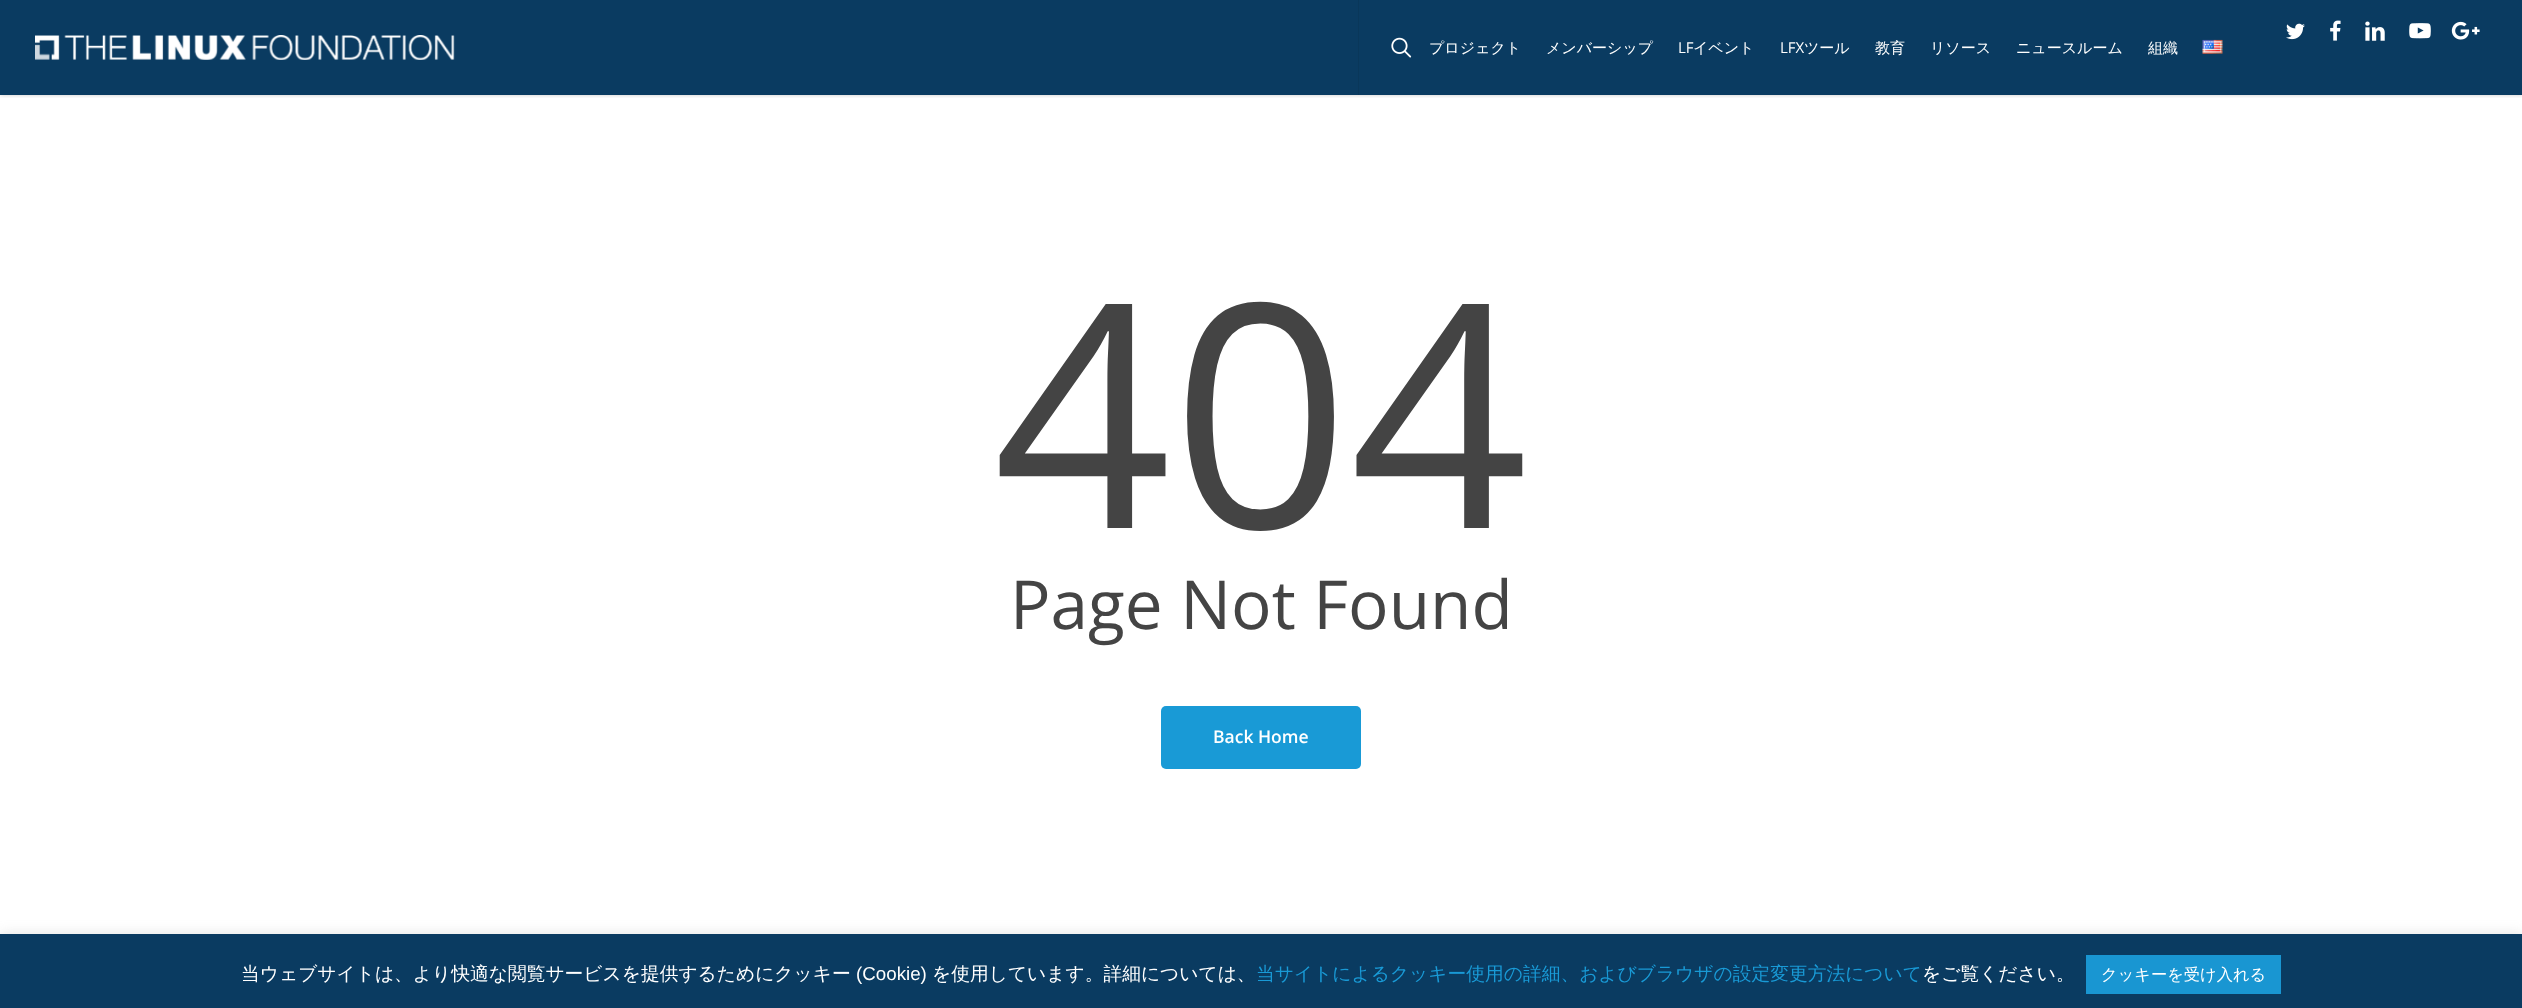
<svg xmlns="http://www.w3.org/2000/svg" xmlns:xlink="http://www.w3.org/1999/xlink" width="2522" height="1008" viewBox="0 0 2522 1008">
<style>
.cls-1{font:500 15px WenQuanYi Zen Hei;fill:#ffffff}
.cls-2{font:15px Open Sans;fill:#ffffff}
.cls-3{font:312px Open Sans;fill:#444444}
.cls-4{font:67.5px Open Sans;fill:#444444}
.cls-5{font:600 17.5px Open Sans;fill:#ffffff}
.cls-6{font:500 18.75px WenQuanYi Zen Hei;fill:#ffffff}
.cls-7{font:18.75px Liberation Sans;fill:#ffffff}
.cls-8{font:500 18.75px WenQuanYi Zen Hei;fill:#199ad6}
.cls-9{font:500 16.25px WenQuanYi Zen Hei;fill:#ffffff}
</style>
<defs>
<clipPath id="clip1"><rect x="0" y="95" width="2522" height="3"/></clipPath>
</defs>
<rect width="100%" height="100%" fill="#ffffff"/>
<rect fill="#0a3b61" x="0" y="0" width="2522" height="95"/>
<g clip-path="url(#clip1)">
<rect fill="#000000" fill-opacity="0.22" filter="blur(2px)" x="0" y="0" width="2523" height="95"/>
</g>
<image xlink:href="image0.png" x="35" y="35" width="420" height="25"/>
<rect fill="#09375a" x="1358" y="0" width="1" height="95"/>
<image xlink:href="image1.png" x="1391" y="37" width="21" height="21"/>
<image xlink:href="image2.png" x="2286" y="23" width="19" height="17"/>
<image xlink:href="image3.png" x="2330" y="20" width="11" height="21"/>
<image xlink:href="image4.png" x="2365" y="21" width="20" height="20"/>
<image xlink:href="image5.png" x="2409" y="23" width="22" height="16"/>
<image xlink:href="image6.png" x="2451" y="21" width="29" height="19"/>
<image xlink:href="image7.png" x="2202" y="39" width="21" height="15"/>
<rect fill="#199ad6" x="1161" y="706" width="200" height="63" rx="5"/>
<rect fill="#acabab" fill-opacity="0.3" filter="blur(6px)" x="0" y="933" width="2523" height="75"/>
<rect fill="#0a3b61" x="0" y="934" width="2522" height="74"/>
<rect fill="#1996d2" x="2086" y="955" width="195" height="39"/>
<text class="cls-1" x="1429" y="53">プロジェクト</text>
<text class="cls-1" x="1546" y="53">メンバーシップ</text>
<text class="cls-2" x="1678" y="53">LF</text>
<text class="cls-1" x="1693" y="53">イベント</text>
<text class="cls-2" x="1780" y="53">LFX</text>
<text class="cls-1" x="1804" y="53">ツール</text>
<text class="cls-1" x="1875" y="53">教育</text>
<text class="cls-1" x="1930" y="53">リソース</text>
<text class="cls-1" x="2016" y="53">ニュースルーム</text>
<text class="cls-1" x="2148" y="53">組織</text>
<text class="cls-3" x="993" y="528">404</text>
<text class="cls-4" x="1010" y="629">Page Not Found</text>
<text class="cls-5" x="1213" y="743">Back Home</text>
<text class="cls-6" x="241" y="980">当ウェブサイトは、より快適な閲覧サービスを提供するためにクッキー</text>
<text class="cls-7" x="856" y="980">(Cookie)</text>
<text class="cls-6" x="932" y="980">を使用しています。詳細については、</text>
<text class="cls-8" x="1256" y="980">当サイトによるクッキー使用の詳細、およびブラウザの設定変更方法について</text>
<text class="cls-6" x="1922" y="980">をご覧ください。</text>
<text class="cls-9" x="2101" y="980">クッキーを受け入れる</text>
</svg>
